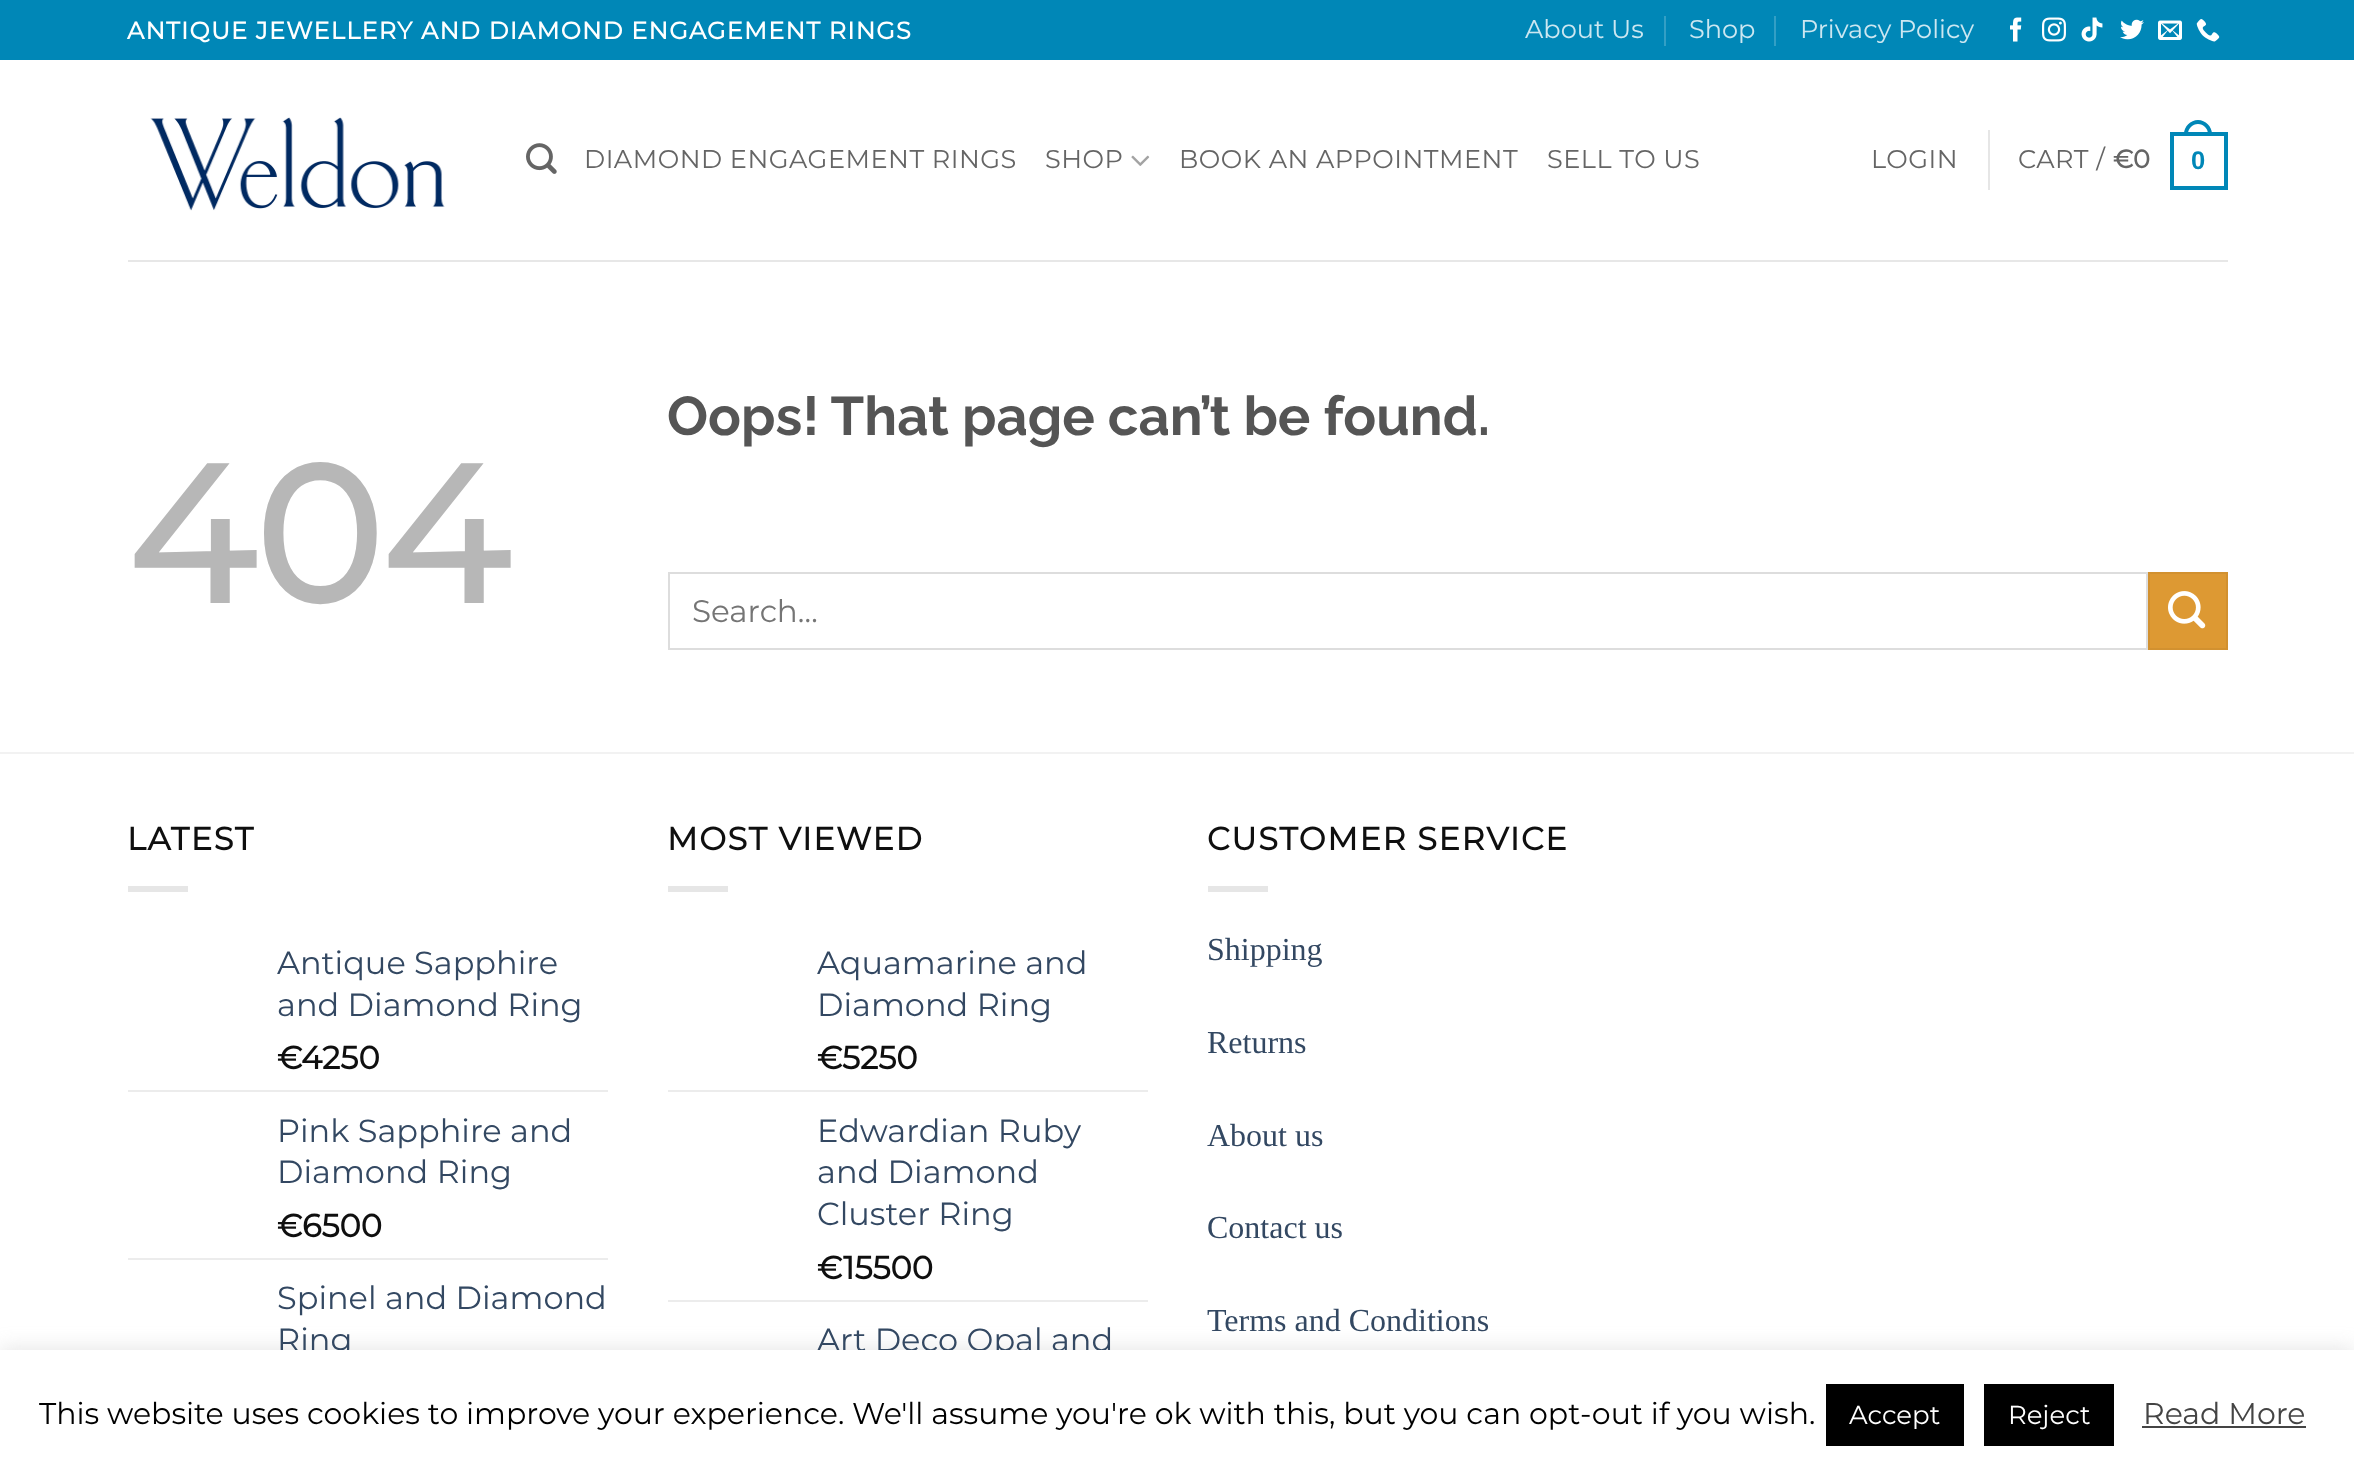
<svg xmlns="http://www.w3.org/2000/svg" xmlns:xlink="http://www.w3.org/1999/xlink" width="2354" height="1480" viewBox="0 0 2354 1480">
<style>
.cls-1{font:bold 24px Montserrat;letter-spacing:1.2px;fill:#ffffff}
.cls-2{font:100 25.6px Montserrat;fill:#cce7f1}
.cls-3{font:100 25.6px Montserrat;letter-spacing:0.5px;fill:#656565}
.cls-4{font:bold 25.6px Montserrat;letter-spacing:0.5px;fill:#656565}
.cls-5{font:bold 25.6px Liberation Sans;letter-spacing:0.5px;fill:#0087b7}
.cls-6{font:bold 192px Montserrat;fill:#b7b7b7}
.cls-7{font:bold 54.4px Raleway;fill:#555555}
.cls-8{font:100 31px Montserrat;fill:#757575}
.cls-9{font:bold 32px Montserrat;letter-spacing:1.6px;fill:#0f0f0f}
.cls-10{font:100 32px Montserrat;fill:#334862}
.cls-11{font:bold 32px Montserrat;fill:#0f0f0f}
.cls-12{font:32px Liberation Serif;fill:#334862}
.cls-13{font:100 30px Montserrat;fill:#000000}
.cls-14{font:100 26px Montserrat;fill:#ffffff}
.cls-15{font:100 30px Montserrat;fill:#444444}
</style>
<rect width="100%" height="100%" fill="#ffffff"/>
<rect fill="#0087b7" x="0" y="0" width="2354" height="60"/>
<rect fill="#339fc5" x="1664" y="16" width="2" height="30"/>
<rect fill="#339fc5" x="1774" y="16" width="2" height="30"/>
<image xlink:href="image0.png" x="2010" y="17" width="12" height="25"/>
<image xlink:href="image1.png" x="2042" y="17" width="24" height="25"/>
<image xlink:href="image2.png" x="2081" y="17" width="22" height="25"/>
<image xlink:href="image3.png" x="2120" y="19" width="24" height="21"/>
<image xlink:href="image4.png" x="2158" y="20" width="24" height="20"/>
<image xlink:href="image5.png" x="2196" y="19" width="24" height="23"/>
<image xlink:href="image6.png" x="150" y="117" width="295" height="94"/>
<image xlink:href="image7.png" x="526" y="143" width="31" height="31"/>
<image xlink:href="image8.png" x="1131" y="155" width="19" height="11"/>
<rect fill="#e6e6e6" x="1988" y="130" width="2" height="60"/>
<rect fill="none" stroke="#0087b7" stroke-width="4" x="2172" y="134" width="54" height="54"/>
<path fill="#0087b7" fill-rule="evenodd" d="M2198 120C2205.5 120 2212 126.5 2212 134V136H2184V134C2184 126.5 2190.5 120 2198 120ZM2198 124C2203.5 124 2208 128.5 2208 134V136H2188V134C2188 128.5 2192.5 124 2198 124Z"/>
<rect fill="#e7e7e7" x="128" y="260" width="2100" height="2"/>
<rect fill="none" stroke="#dddddd" stroke-width="2" x="669" y="573" width="1478" height="76"/>
<rect fill="#dd9933" stroke="#d29130" stroke-width="2" x="2149" y="573" width="78" height="76"/>
<image xlink:href="image9.png" x="2168" y="591" width="38" height="38"/>
<rect fill="#f2f2f2" x="0" y="752" width="2354" height="2"/>
<rect fill="#e6e6e6" x="128" y="886" width="60" height="6"/>
<rect fill="#ececec" x="128" y="1090" width="480" height="2"/>
<rect fill="#ececec" x="128" y="1258" width="480" height="2"/>
<rect fill="#e6e6e6" x="668" y="886" width="60" height="6"/>
<rect fill="#ececec" x="668" y="1090" width="480" height="2"/>
<rect fill="#ececec" x="668" y="1300" width="480" height="2"/>
<rect fill="#e6e6e6" x="1208" y="886" width="60" height="6"/>
<rect fill="#acabab" fill-opacity="0.3" filter="blur(10px)" x="0" y="1348" width="2354" height="130"/>
<text class="cls-1" x="127" y="39">ANTIQUE JEWELLERY AND DIAMOND ENGAGEMENT RINGS</text>
<text class="cls-2" x="1525" y="38">About Us</text>
<text class="cls-2" x="1689" y="38">Shop</text>
<text class="cls-2" x="1800" y="38">Privacy Policy</text>
<text class="cls-3" x="584" y="168">DIAMOND ENGAGEMENT RINGS</text>
<text class="cls-3" x="1045" y="168">SHOP</text>
<text class="cls-3" x="1179" y="168">BOOK AN APPOINTMENT</text>
<text class="cls-3" x="1547" y="168">SELL TO US</text>
<text class="cls-3" x="1871" y="168">LOGIN</text>
<text class="cls-3" x="2018" y="168">CART /</text>
<text class="cls-4" x="2113" y="168">€</text>
<text class="cls-4" x="2133" y="168">0</text>
<text class="cls-5" x="2191" y="169">0</text>
<text class="cls-6" x="127" y="603">404</text>
<text class="cls-7" x="667" y="435">Oops! That page can’t be found.</text>
<text class="cls-8" x="692" y="622">Search…</text>
<text class="cls-9" x="127" y="850">LATEST</text>
<text class="cls-10"><tspan x="277" y="974">Antique Sapphire</tspan><tspan x="277" y="1016">and Diamond Ring</tspan></text>
<text class="cls-11" x="277" y="1069">€</text>
<text class="cls-11" x="301" y="1069">4250</text>
<text class="cls-10"><tspan x="277" y="1142">Pink Sapphire and</tspan><tspan x="277" y="1183">Diamond Ring</tspan></text>
<text class="cls-11" x="277" y="1237">€</text>
<text class="cls-11" x="302" y="1237">6500</text>
<text class="cls-10"><tspan x="277" y="1309">Spinel and Diamond</tspan><tspan x="277" y="1351">Ring</tspan></text>
<text class="cls-9" x="667" y="850">MOST VIEWED</text>
<text class="cls-10"><tspan x="817" y="974">Aquamarine and</tspan><tspan x="817" y="1016">Diamond Ring</tspan></text>
<text class="cls-11" x="817" y="1069">€</text>
<text class="cls-11" x="842" y="1069">5250</text>
<text class="cls-10"><tspan x="817" y="1142">Edwardian Ruby</tspan><tspan x="817" y="1183">and Diamond</tspan><tspan x="817" y="1225">Cluster Ring</tspan></text>
<text class="cls-11" x="817" y="1279">€</text>
<text class="cls-11" x="843" y="1279">15500</text>
<text class="cls-10" x="817" y="1351">Art Deco Opal and</text>
<text class="cls-9" x="1207" y="850">CUSTOMER SERVICE</text>
<text class="cls-12" x="1207" y="960">Shipping</text>
<text class="cls-12" x="1207" y="1053">Returns</text>
<text class="cls-12" x="1207" y="1146">About us</text>
<text class="cls-12" x="1207" y="1238">Contact us</text>
<text class="cls-12" x="1207" y="1331">Terms and Conditions</text>
<rect fill="#ffffff" x="0" y="1350" width="2354" height="130"/>
<text class="cls-13" x="39" y="1424">This website uses cookies to improve your experience. We'll assume you're ok with this, but you can opt-out if you wish.</text>
<rect fill="#000000" x="1826" y="1384" width="138" height="62"/>
<text class="cls-14" x="1849" y="1424">Accept</text>
<rect fill="#000000" x="1984" y="1384" width="130" height="62"/>
<text class="cls-14" x="2008" y="1424">Reject</text>
<text class="cls-15" x="2143" y="1424">Read More</text>
<rect fill="#444444" x="2142" y="1426" width="164" height="2"/>
</svg>
